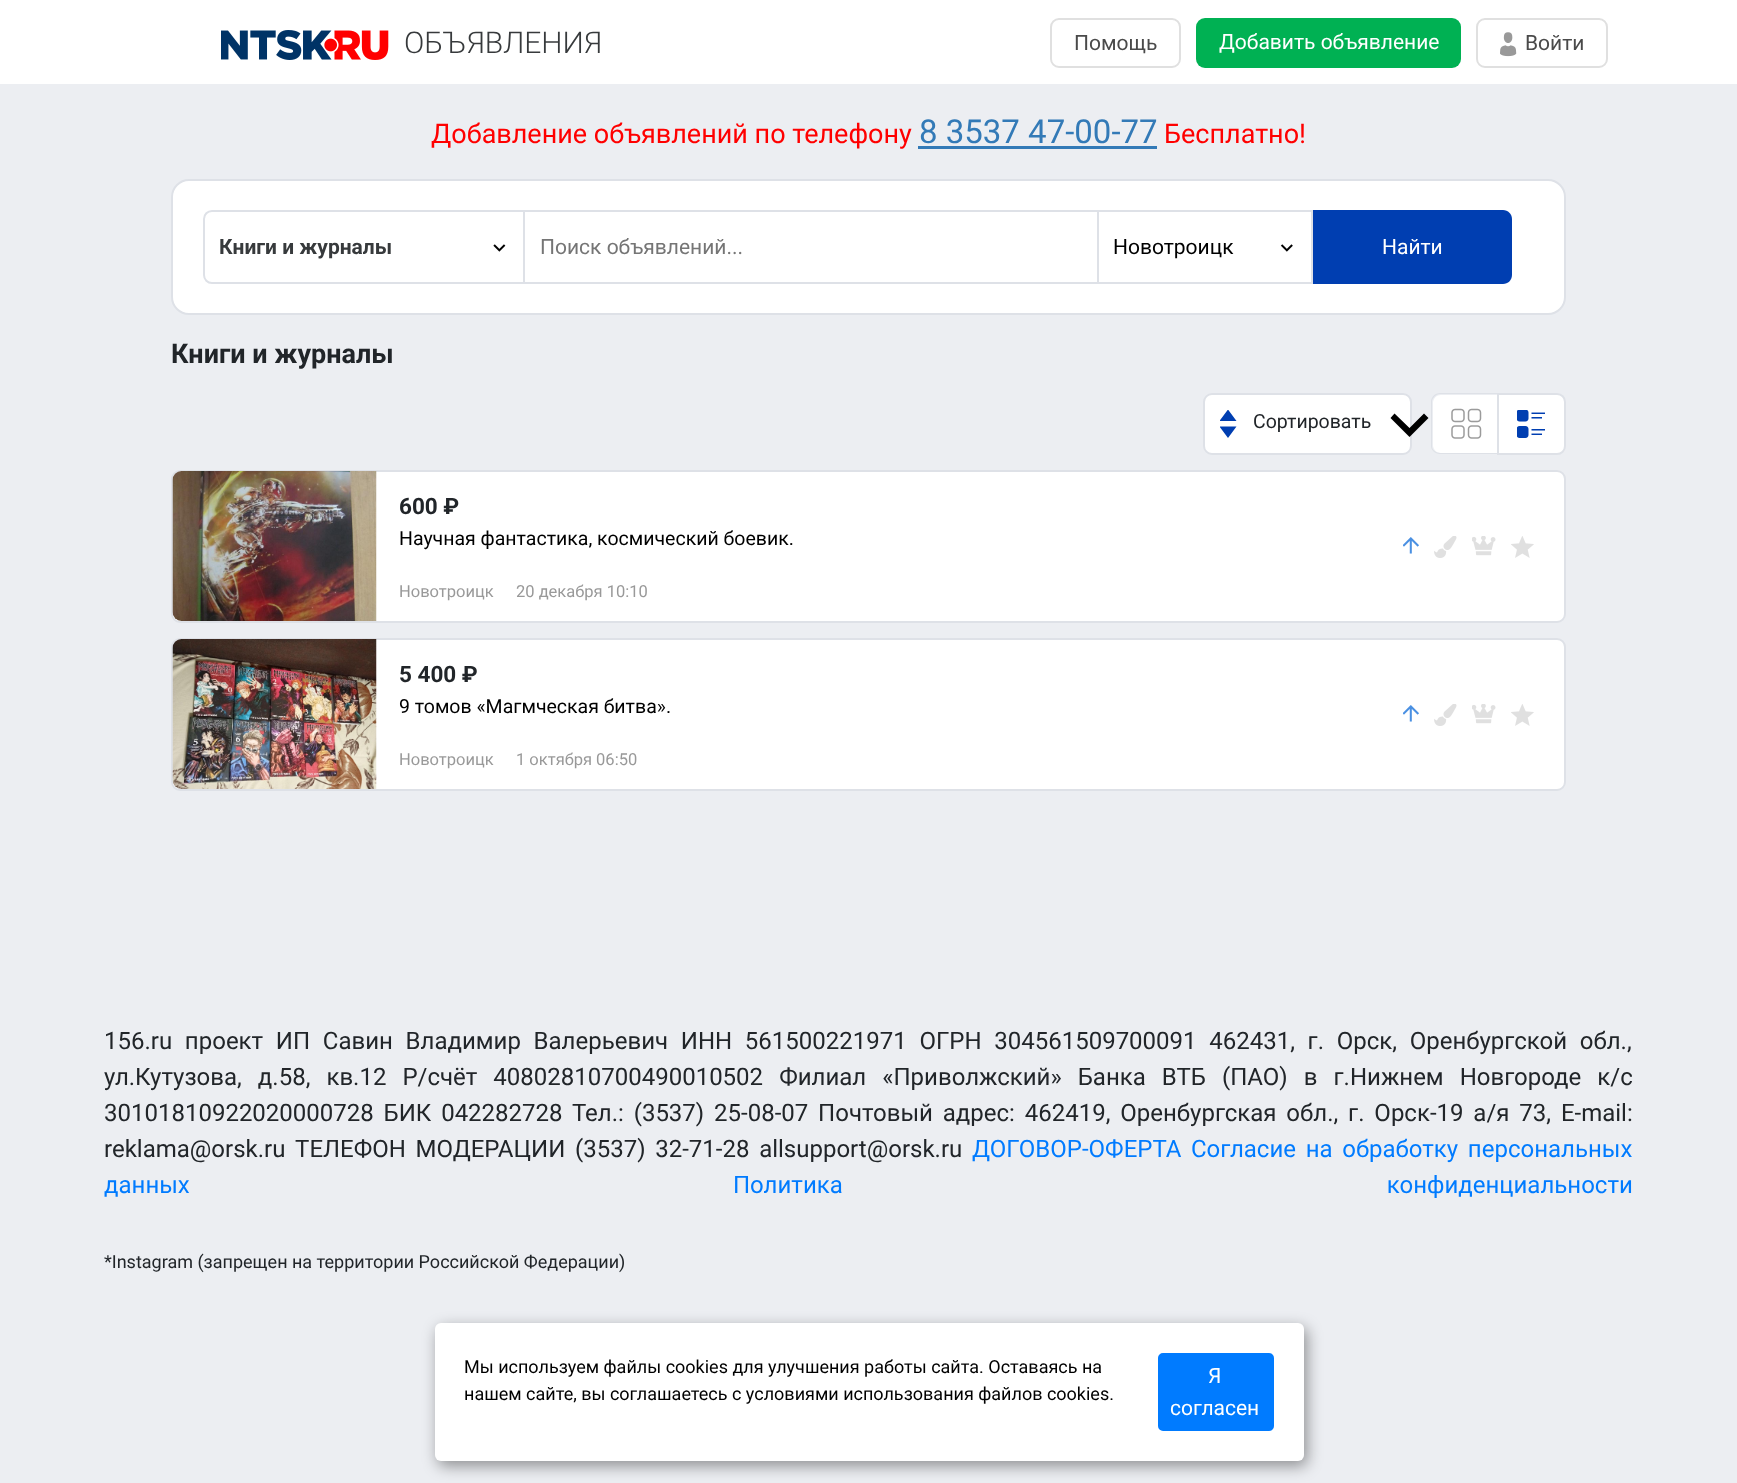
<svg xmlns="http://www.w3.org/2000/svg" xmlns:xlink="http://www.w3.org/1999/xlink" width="1737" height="1483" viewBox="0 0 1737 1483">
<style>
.cls-1{font:300 30px Roboto;fill:#373a3c}
.cls-2{font:21px Roboto;fill:#4a4a4a}
.cls-3{font:21px Roboto;fill:#ffffff}
.cls-4{font:27px Roboto;fill:#ff0000}
.cls-5{font:33px Roboto;fill:#337ab7}
.cls-6{font:bold 21px Roboto;fill:#373a3c}
.cls-7{font:21px Roboto;fill:#757575}
.cls-8{font:21px Roboto;fill:#000000}
.cls-9{font:bold 27px Roboto;fill:#212529}
.cls-10{font:19.5px Roboto;fill:#212529}
.cls-11{font:bold 22.5px Roboto;fill:#212529}
.cls-12{font:19.5px Roboto;fill:#000000}
.cls-13{font:16.5px Roboto;fill:#999999}
.cls-14{font:24px Roboto;fill:#212529}
.cls-15{font:24px Roboto;fill:#007bff}
.cls-16{font:18px Roboto;fill:#212529}
.cls-17{font:18px Roboto;fill:#000000}
</style>
<defs>
<clipPath id="clip1"><rect x="1220" y="410" width="18" height="28"/></clipPath>
</defs>
<rect width="100%" height="100%" fill="#eceef2"/>
<rect fill="#ffffff" x="0" y="0" width="1737" height="84"/>
<image xlink:href="image0.png" x="221" y="30" width="168" height="30"/>
<rect fill="none" stroke="#e0e0e0" stroke-width="2" x="1051" y="19" width="129" height="48" rx="8"/>
<rect fill="#00b153" x="1196" y="18" width="265" height="50" rx="9"/>
<rect fill="none" stroke="#e0e0e0" stroke-width="2" x="1477" y="19" width="130" height="48" rx="8"/>
<image xlink:href="image1.png" x="1500" y="32" width="17" height="25"/>
<rect fill="#337ab7" x="918" y="146" width="239" height="3"/>
<rect fill="#ffffff" stroke="#dee1e7" stroke-width="2" x="172" y="180" width="1393" height="134" rx="17"/>
<path fill="none" stroke="#dee1e7" stroke-width="2" d="M212 211H524V283H212C207.5 283 204 279.5 204 275V219C204 214.5 207.5 211 212 211Z"/>
<image xlink:href="image2.png" x="493" y="244" width="13" height="8"/>
<rect fill="#dee1e7" x="525" y="210" width="573" height="2"/>
<rect fill="#dee1e7" x="1097" y="210" width="2" height="74"/>
<rect fill="#dee1e7" x="525" y="282" width="573" height="2"/>
<rect fill="#dee1e7" x="1098" y="210" width="215" height="2"/>
<rect fill="#dee1e7" x="1311" y="210" width="2" height="74"/>
<rect fill="#dee1e7" x="1098" y="282" width="215" height="2"/>
<image xlink:href="image3.png" x="1280" y="244" width="13" height="8"/>
<path fill="#003eb1" d="M1313 210H1503C1508 210 1512 214 1512 219V275C1512 280 1508 284 1503 284H1313Z"/>
<rect fill="#ffffff" stroke="#dee1e7" stroke-width="2" x="1204" y="394" width="207" height="60" rx="8"/>
<g clip-path="url(#clip1)">
<path fill="#003eb1" d="M1236.5 426.5L1228 438L1219.5 426.5ZM1228 409.5L1236.5 421H1219.5Z"/>
</g>
<path fill="#000000" d="M1390.5 418L1409.5 437L1428.5 418L1424 413.5L1409.5 428L1394.5 413.5Z"/>
<path fill="#ffffff" d="M1441 395H1497V453H1441C1436.5 453 1433 449.5 1433 445V403C1433 398.5 1436.5 395 1441 395Z"/>
<path fill="#dee1e7" fill-rule="evenodd" d="M1440 393H1497V454H1440C1435 454 1431 450 1431 446V402C1431 397 1435 393 1440 393ZM1440 394H1497V453H1440C1436 453 1432 450 1432 446V402C1432 398 1436 394 1440 394Z"/>
<image xlink:href="image4.png" x="1451" y="408" width="31" height="31"/>
<path fill="#ffffff" stroke="#dee1e7" stroke-width="2" d="M1498 394H1557C1561.5 394 1565 397.5 1565 402V446C1565 450.5 1561.5 454 1557 454H1498Z"/>
<image xlink:href="image5.png" x="1517" y="410" width="28" height="28"/>
<rect fill="#ffffff" stroke="#dee1e7" stroke-width="2" x="172" y="471" width="1393" height="151" rx="8"/>
<image xlink:href="image6.png" x="172" y="471" width="205" height="150"/>
<image xlink:href="image7.png" x="1403" y="537" width="16" height="17"/>
<image xlink:href="image8.png" x="1434" y="536" width="23" height="22"/>
<image xlink:href="image9.png" x="1472" y="536" width="24" height="20"/>
<image xlink:href="image10.png" x="1511" y="536" width="23" height="22"/>
<rect fill="#ffffff" stroke="#dee1e7" stroke-width="2" x="172" y="639" width="1393" height="151" rx="8"/>
<image xlink:href="image11.png" x="172" y="639" width="205" height="150"/>
<image xlink:href="image7.png" x="1403" y="705" width="16" height="17"/>
<image xlink:href="image8.png" x="1434" y="704" width="23" height="22"/>
<image xlink:href="image9.png" x="1472" y="704" width="24" height="20"/>
<image xlink:href="image10.png" x="1511" y="704" width="23" height="22"/>
<rect fill="#000000" fill-opacity="0.4" filter="blur(7.5px)" x="438" y="1328" width="869" height="138" rx="6"/>
<rect fill="#ffffff" x="435" y="1323" width="869" height="138" rx="6"/>
<rect fill="#007bff" stroke="#007bff" stroke-width="2" x="1159" y="1354" width="114" height="76" rx="4"/>
<text class="cls-1" x="404" y="53">ОБЪЯВЛЕНИЯ</text>
<text class="cls-2" x="1074" y="50">Помощь</text>
<text class="cls-3" x="1219" y="49">Добавить объявление</text>
<text class="cls-2" x="1525" y="50">Войти</text>
<text class="cls-4" x="431" y="143">Добавление объявлений по телефону</text>
<text class="cls-5" x="919" y="143">8 3537 47-00-77</text>
<text class="cls-4" x="1164" y="143">Бесплатно!</text>
<text class="cls-6" x="219" y="254">Книги и журналы</text>
<text class="cls-7" x="540" y="254">Поиск объявлений...</text>
<text class="cls-8" x="1113" y="254">Новотроицк</text>
<text class="cls-3" x="1382" y="254">Найти</text>
<text class="cls-9" x="171" y="363">Книги и журналы</text>
<text class="cls-10" x="1253" y="428">Сортировать</text>
<text class="cls-11" x="399" y="514">600 ₽</text>
<text class="cls-12" x="399" y="545">Научная фантастика, космический боевик.</text>
<text class="cls-13" x="399" y="597">Новотроицк</text>
<text class="cls-13" x="516" y="597">20 декабря 10:10</text>
<text class="cls-11" x="399" y="682">5 400 ₽</text>
<text class="cls-12" x="399" y="713">9 томов «Магмческая битва».</text>
<text class="cls-13" x="399" y="765">Новотроицк</text>
<text class="cls-13" x="516" y="765">1 октября 06:50</text>
<text class="cls-14"><tspan x="104" y="1049" word-spacing="6.75">156.ru проект ИП Савин Владимир Валерьевич ИНН 561500221971 ОГРН 304561509700091 462431, г. Орск, Оренбургской обл.,</tspan><tspan x="104" y="1085" word-spacing="10.1">ул.Кутузова, д.58, кв.12 Р/счёт 40802810700490010502 Филиал «Приволжский» Банка ВТБ (ПАО) в г.Нижнем Новгороде к/с</tspan><tspan x="104" y="1121" word-spacing="3.9">30101810922020000728 БИК 042282728 Тел.: (3537) 25-08-07 Почтовый адрес: 462419, Оренбургская обл., г. Орск-19 а/я 73, E-mail:</tspan><tspan x="104" y="1157" word-spacing="3.75">reklama@orsk.ru ТЕЛЕФОН МОДЕРАЦИИ (3537) 32-71-28 allsupport@orsk.ru</tspan></text>
<text class="cls-15" x="972" y="1157">ДОГОВОР-ОФЕРТА</text>
<text class="cls-15" x="1191" y="1157" word-spacing="3.75">Согласие на обработку персональных</text>
<text class="cls-15" x="104" y="1193">данных</text>
<text class="cls-15" x="733" y="1193" word-spacing="538">Политика конфиденциальности</text>
<text class="cls-16" x="104" y="1268">*Instagram (запрещен на территории Российской Федерации)</text>
<text class="cls-17"><tspan x="464" y="1373">Мы используем файлы cookies для улучшения работы сайта. Оставаясь на</tspan><tspan x="464" y="1400">нашем сайте, вы соглашаетесь с условиями использования файлов cookies.</tspan></text>
<text class="cls-3" x="1208" y="1383">Я</text>
<text class="cls-3" x="1170" y="1415">согласен</text>
</svg>
